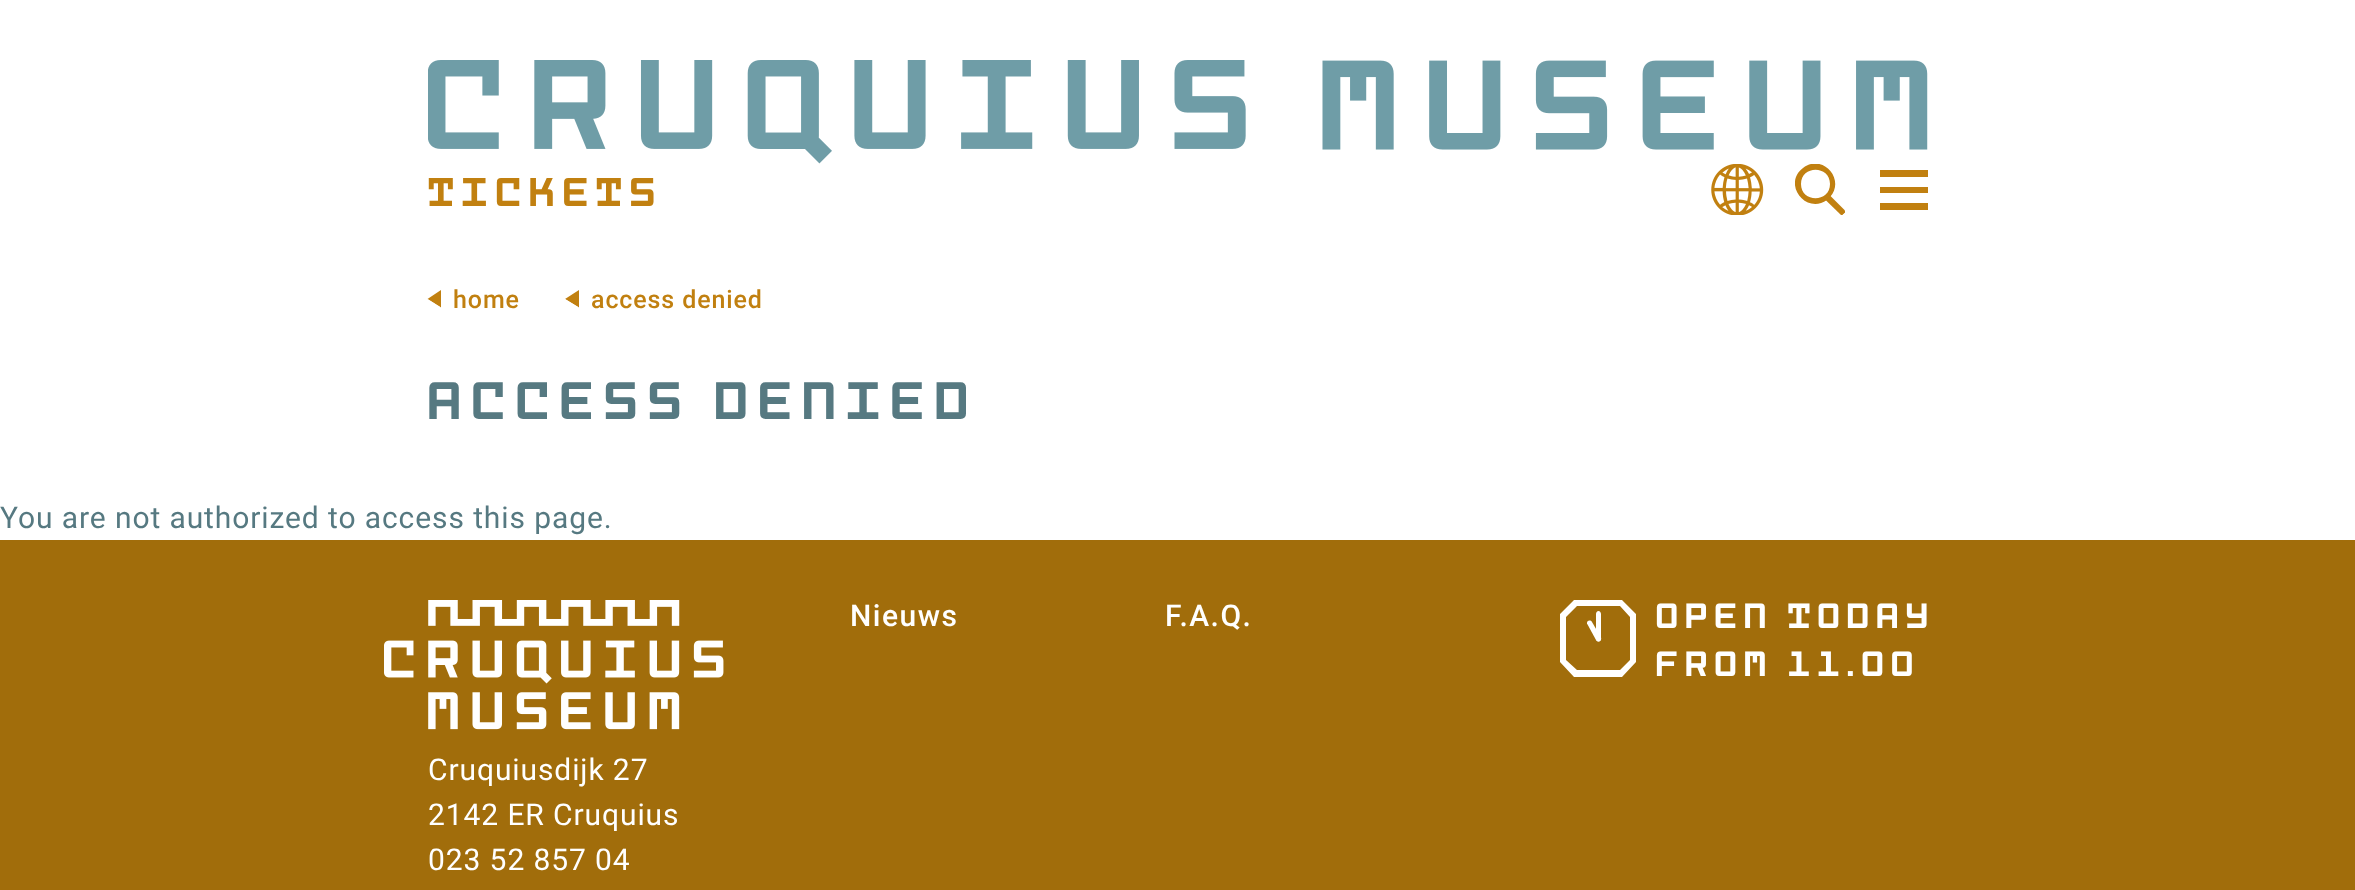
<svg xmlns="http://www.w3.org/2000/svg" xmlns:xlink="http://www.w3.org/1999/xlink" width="2355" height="890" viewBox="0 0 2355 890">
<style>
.cls-1{font:40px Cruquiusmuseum;fill:#c18010}
.cls-2{font:500 25px Roboto;letter-spacing:0.9px;fill:#c18010}
.cls-3{font:52.5px Cruquiusmuseum;fill:#567981}
.cls-4{font:30px Roboto;letter-spacing:0.9px;fill:#567981}
.cls-5{font:500 30px Roboto;letter-spacing:1.5px;fill:#ffffff}
.cls-6{font:35px Cruquiusmuseum;fill:#ffffff}
.cls-7{font:30px Roboto;letter-spacing:0.9px;fill:#ffffff}
</style>
<defs>
<clipPath id="clip1"><rect x="1795" y="164" width="50" height="51"/></clipPath>
</defs>
<rect width="100%" height="100%" fill="#ffffff"/>
<image xlink:href="image0.png" x="428" y="60" width="1500" height="104"/>
<image xlink:href="image1.png" x="1711" y="164" width="53" height="51"/>
<g clip-path="url(#clip1)">
<path fill="#c18010" d="M1845 212L1830 197C1846 179 1822 153 1803 168C1782 184 1806 215 1827 200L1842 215ZM1801 184C1801 165 1830 165 1830 184C1830 203 1801 203 1801 184"/>
<path fill="#c18010" d="M1827.5 193L1846 211.5L1841.5 215.5L1823 197.5Z"/>
</g>
<rect fill="#c18010" x="1880" y="170" width="48" height="7"/>
<rect fill="#c18010" x="1880" y="187" width="48" height="6"/>
<rect fill="#c18010" x="1880" y="203" width="48" height="7"/>
<path fill="#c18010" d="M441 290V307.5L427.5 299Z"/>
<path fill="#ffffff" d="M441 307.5H427.5V299Z"/>
<path fill="#c18010" d="M579 290V307.5L565 299Z"/>
<path fill="#ffffff" d="M579 307.5H565V299Z"/>
<rect fill="#a16d0b" x="0" y="540" width="2355" height="350"/>
<path fill="#ffffff" d="M1577 606L1566 617V660L1577 670H1620L1630 660V617L1620 606H1577M1574 600H1622L1636 614V662L1622 677H1574L1560 662V614Z"/>
<path fill="#ffffff" d="M1601 637.5L1596 640L1587 623.5C1586.5 620.5 1590.5 619.5 1592 622Z"/>
<path fill="#ffffff" d="M1600 641C1598.5 642 1597 641.5 1596 640L1601 637.5C1601.5 638.5 1601 640.5 1600 641Z"/>
<path fill="#ffffff" d="M1601 639H1596V614C1596 612.5 1597 611 1598.5 611C1600 611 1601 612.5 1601 614ZM1598.5 641.5C1597 641.5 1596 640 1596 639H1601C1601 640 1600 641.5 1598.5 641.5Z"/>
<image xlink:href="image2.png" x="384" y="600" width="340" height="130"/>
<text class="cls-1" x="424" y="206">Tickets</text>
<text class="cls-2" x="453" y="308">home</text>
<text class="cls-2" x="591" y="308">access denied</text>
<text class="cls-3" x="422" y="419">Access denied</text>
<text class="cls-4" x="0" y="528">You are not authorized to access this page.</text>
<text class="cls-5" x="850" y="626">Nieuws</text>
<text class="cls-5" x="1165" y="626">F.A.Q.</text>
<text class="cls-6"><tspan x="1652" y="628">open today</tspan><tspan x="1652" y="676">from 11.00</tspan></text>
<text class="cls-7"><tspan x="428" y="780">Cruquiusdijk 27</tspan><tspan x="428" y="825">2142 ER Cruquius</tspan><tspan x="428" y="870">023 52 857 04</tspan></text>
</svg>
